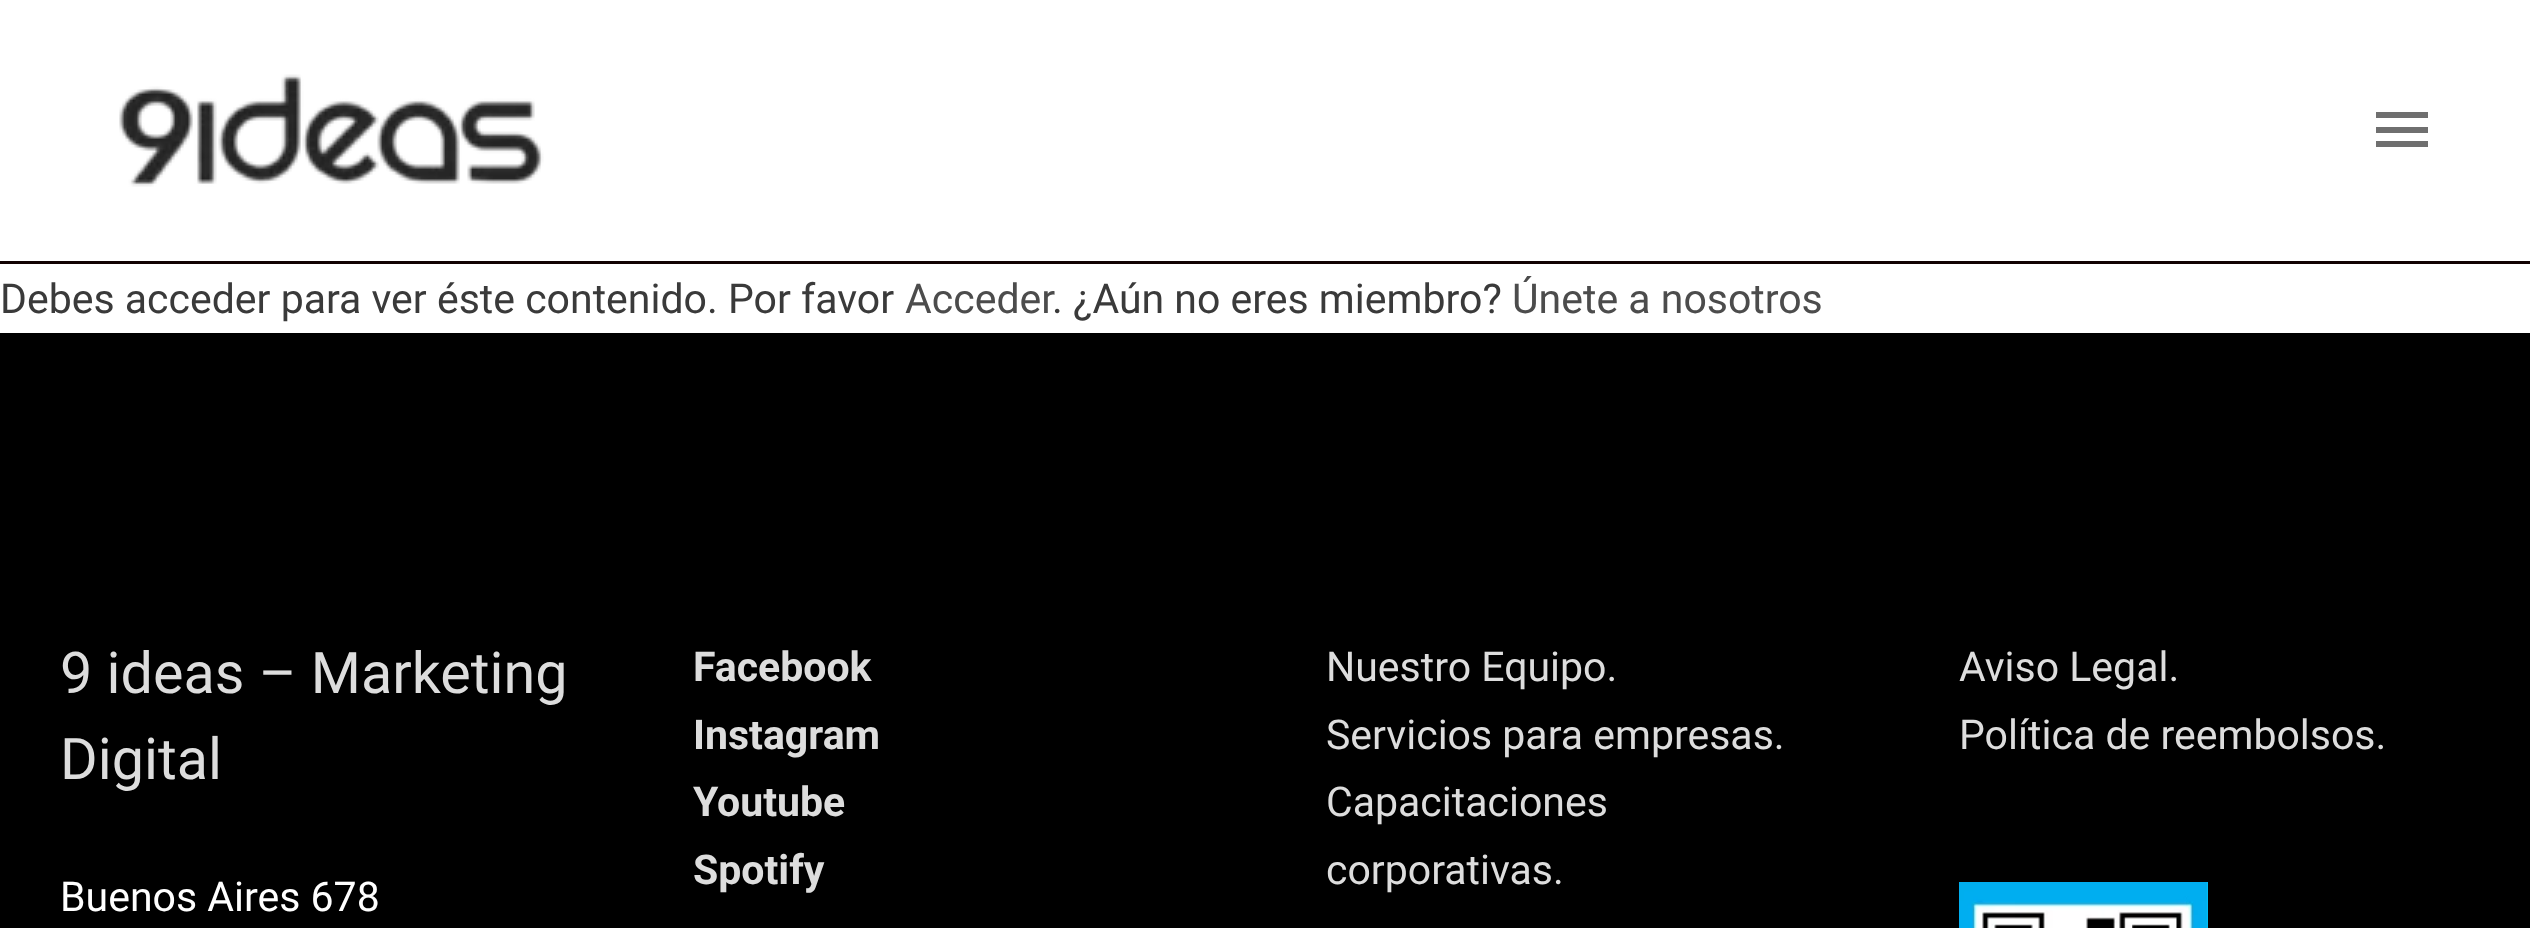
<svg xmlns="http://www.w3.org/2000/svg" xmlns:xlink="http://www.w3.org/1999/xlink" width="2530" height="928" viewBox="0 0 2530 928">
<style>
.cls-1{font:41px Roboto;fill:#3a3a3a}
.cls-2{font:41px Roboto;fill:#4c4c4c}
.cls-3{font:57.5px Roboto;fill:#dddddd}
.cls-4{font:41px Roboto;fill:#ffffff}
.cls-5{font:bold 41px Roboto;fill:#dddddd}
.cls-6{font:41px Roboto;fill:#dddddd}
</style>
<rect width="100%" height="100%" fill="#ffffff"/>
<rect fill="#120202" x="0" y="261" width="2530" height="3"/>
<image xlink:href="image0.png" x="119" y="74" width="425" height="113"/>
<path fill="#6f6f6f" d="M2376 112H2428V118H2376ZM2376 133V127H2428V133ZM2376 147V141H2428V147Z"/>
<rect fill="#000000" x="0" y="333" width="2530" height="595"/>
<image xlink:href="image1.png" x="1959" y="882" width="249" height="46"/>
<text class="cls-1" x="0" y="313">Debes acceder para ver éste contenido. Por favor</text>
<text class="cls-2" x="905" y="313">Acceder</text>
<text class="cls-1" x="1052" y="313">. ¿Aún no eres miembro?</text>
<text class="cls-2" x="1512" y="313">Únete a nosotros</text>
<text class="cls-3"><tspan x="60" y="693">9 ideas – Marketing</tspan><tspan x="60" y="779">Digital</tspan></text>
<text class="cls-4" x="60" y="911">Buenos Aires 678</text>
<text class="cls-5"><tspan x="693" y="681">Facebook</tspan><tspan x="693" y="749">Instagram</tspan><tspan x="693" y="816">Youtube</tspan><tspan x="693" y="884">Spotify</tspan></text>
<text class="cls-6"><tspan x="1326" y="681">Nuestro Equipo.</tspan><tspan x="1326" y="749">Servicios para empresas.</tspan><tspan x="1326" y="816">Capacitaciones</tspan><tspan x="1326" y="884">corporativas.</tspan></text>
<text class="cls-6"><tspan x="1959" y="681">Aviso Legal.</tspan><tspan x="1959" y="749">Política de reembolsos.</tspan></text>
</svg>
